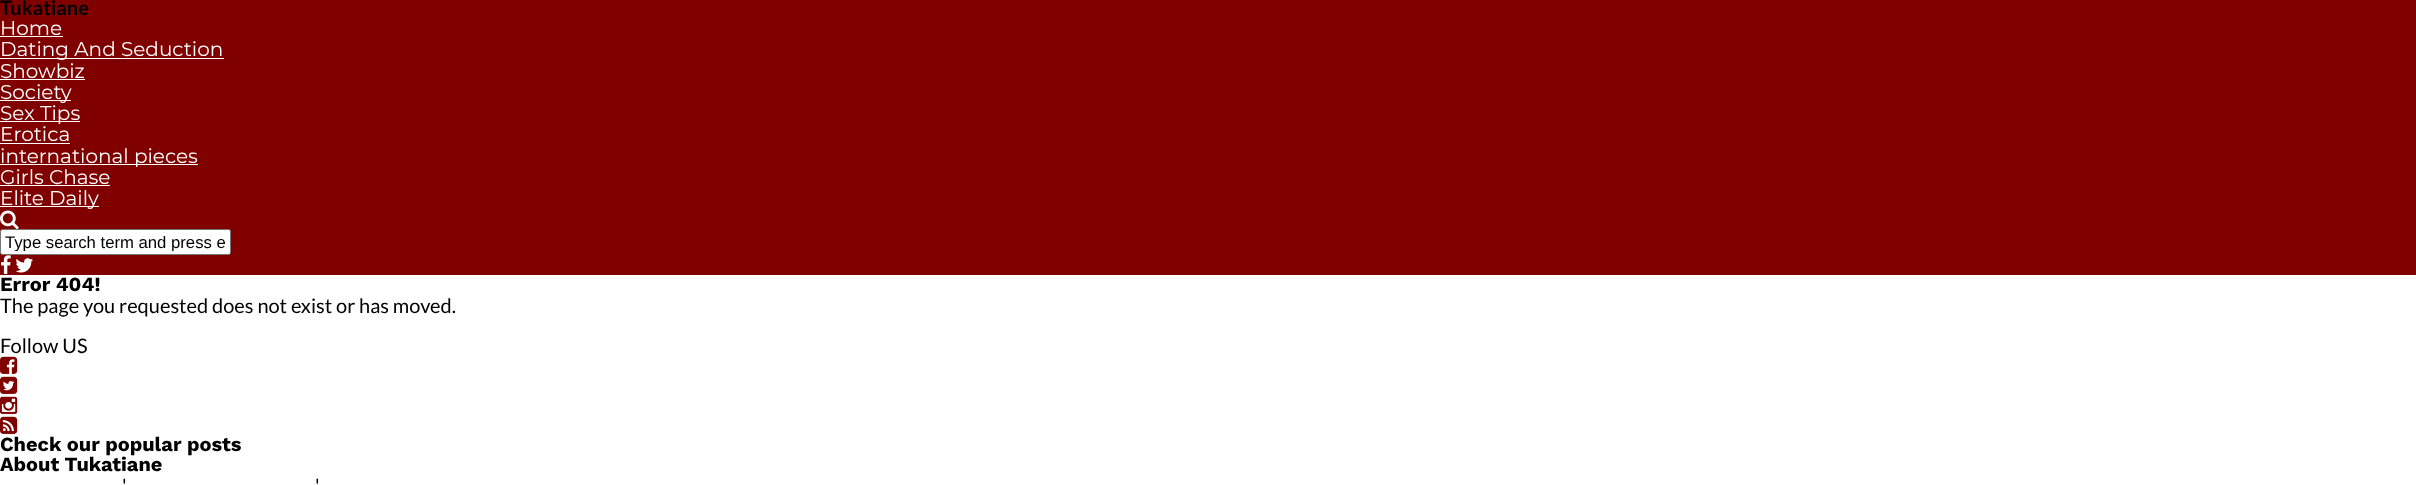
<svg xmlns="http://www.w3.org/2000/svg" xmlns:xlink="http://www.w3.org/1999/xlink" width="2416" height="485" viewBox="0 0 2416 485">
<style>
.cls-1{font:bold 20px Lato;fill:#000000}
.cls-2{font:20px Montserrat;fill:#ffffff}
.cls-3{font:16.7px Liberation Sans;fill:#000000}
.cls-4{font:bold 20px Work Sans;fill:#000000}
.cls-5{font:20px Lato;fill:#000000}
</style>
<defs>
<clipPath id="clip1"><rect x="5" y="233" width="221" height="18"/></clipPath>
</defs>
<rect width="100%" height="100%" fill="#ffffff"/>
<rect fill="#800000" x="0" y="0" width="2416" height="275"/>
<rect fill="#ffffff" x="0" y="36" width="63" height="1"/>
<rect fill="#ffffff" x="0" y="58" width="224" height="1"/>
<rect fill="#ffffff" x="0" y="79" width="85" height="1"/>
<rect fill="#ffffff" x="0" y="100" width="71" height="1"/>
<rect fill="#ffffff" x="0" y="121" width="80" height="1"/>
<rect fill="#ffffff" x="0" y="143" width="70" height="1"/>
<rect fill="#ffffff" x="0" y="164" width="198" height="1"/>
<rect fill="#ffffff" x="0" y="185" width="110" height="1"/>
<rect fill="#ffffff" x="0" y="206" width="99" height="1"/>
<image xlink:href="image0.png" x="0" y="210" width="19" height="19"/>
<rect fill="#ffffff" stroke="#767676" x="0.5" y="229.5" width="230" height="25" rx="2"/>
<image xlink:href="image1.png" x="1" y="255" width="10" height="19"/>
<image xlink:href="image2.png" x="15" y="258" width="18" height="15"/>
<image xlink:href="image3.png" x="0" y="356" width="18" height="18"/>
<image xlink:href="image4.png" x="0" y="376" width="18" height="18"/>
<image xlink:href="image5.png" x="0" y="396" width="18" height="18"/>
<image xlink:href="image6.png" x="0" y="416" width="18" height="18"/>
<text class="cls-1" x="0" y="15">Tukatiane</text>
<text class="cls-2"><tspan x="0" y="35">Home</tspan><tspan x="0" y="56">Dating And Seduction</tspan><tspan x="0" y="78">Showbiz</tspan><tspan x="0" y="99">Society</tspan><tspan x="0" y="120">Sex Tips</tspan><tspan x="0" y="141">Erotica</tspan><tspan x="0" y="163">international pieces</tspan><tspan x="0" y="184">Girls Chase</tspan><tspan x="0" y="205">Elite Daily</tspan></text>
<g clip-path="url(#clip1)">
<text class="cls-3" x="5" y="248">Type search term and press e</text>
</g>
<text class="cls-4" x="0" y="291">Error 404!</text>
<text class="cls-5" x="0" y="313">The page you requested does not exist or has moved.</text>
<text class="cls-5" x="0" y="353">Follow US</text>
<text class="cls-4"><tspan x="0" y="451">Check our popular posts</tspan><tspan x="0" y="471">About Tukatiane</tspan></text>
<text class="cls-5" x="122" y="493">'</text>
<text class="cls-5" x="315" y="493">'</text>
</svg>
